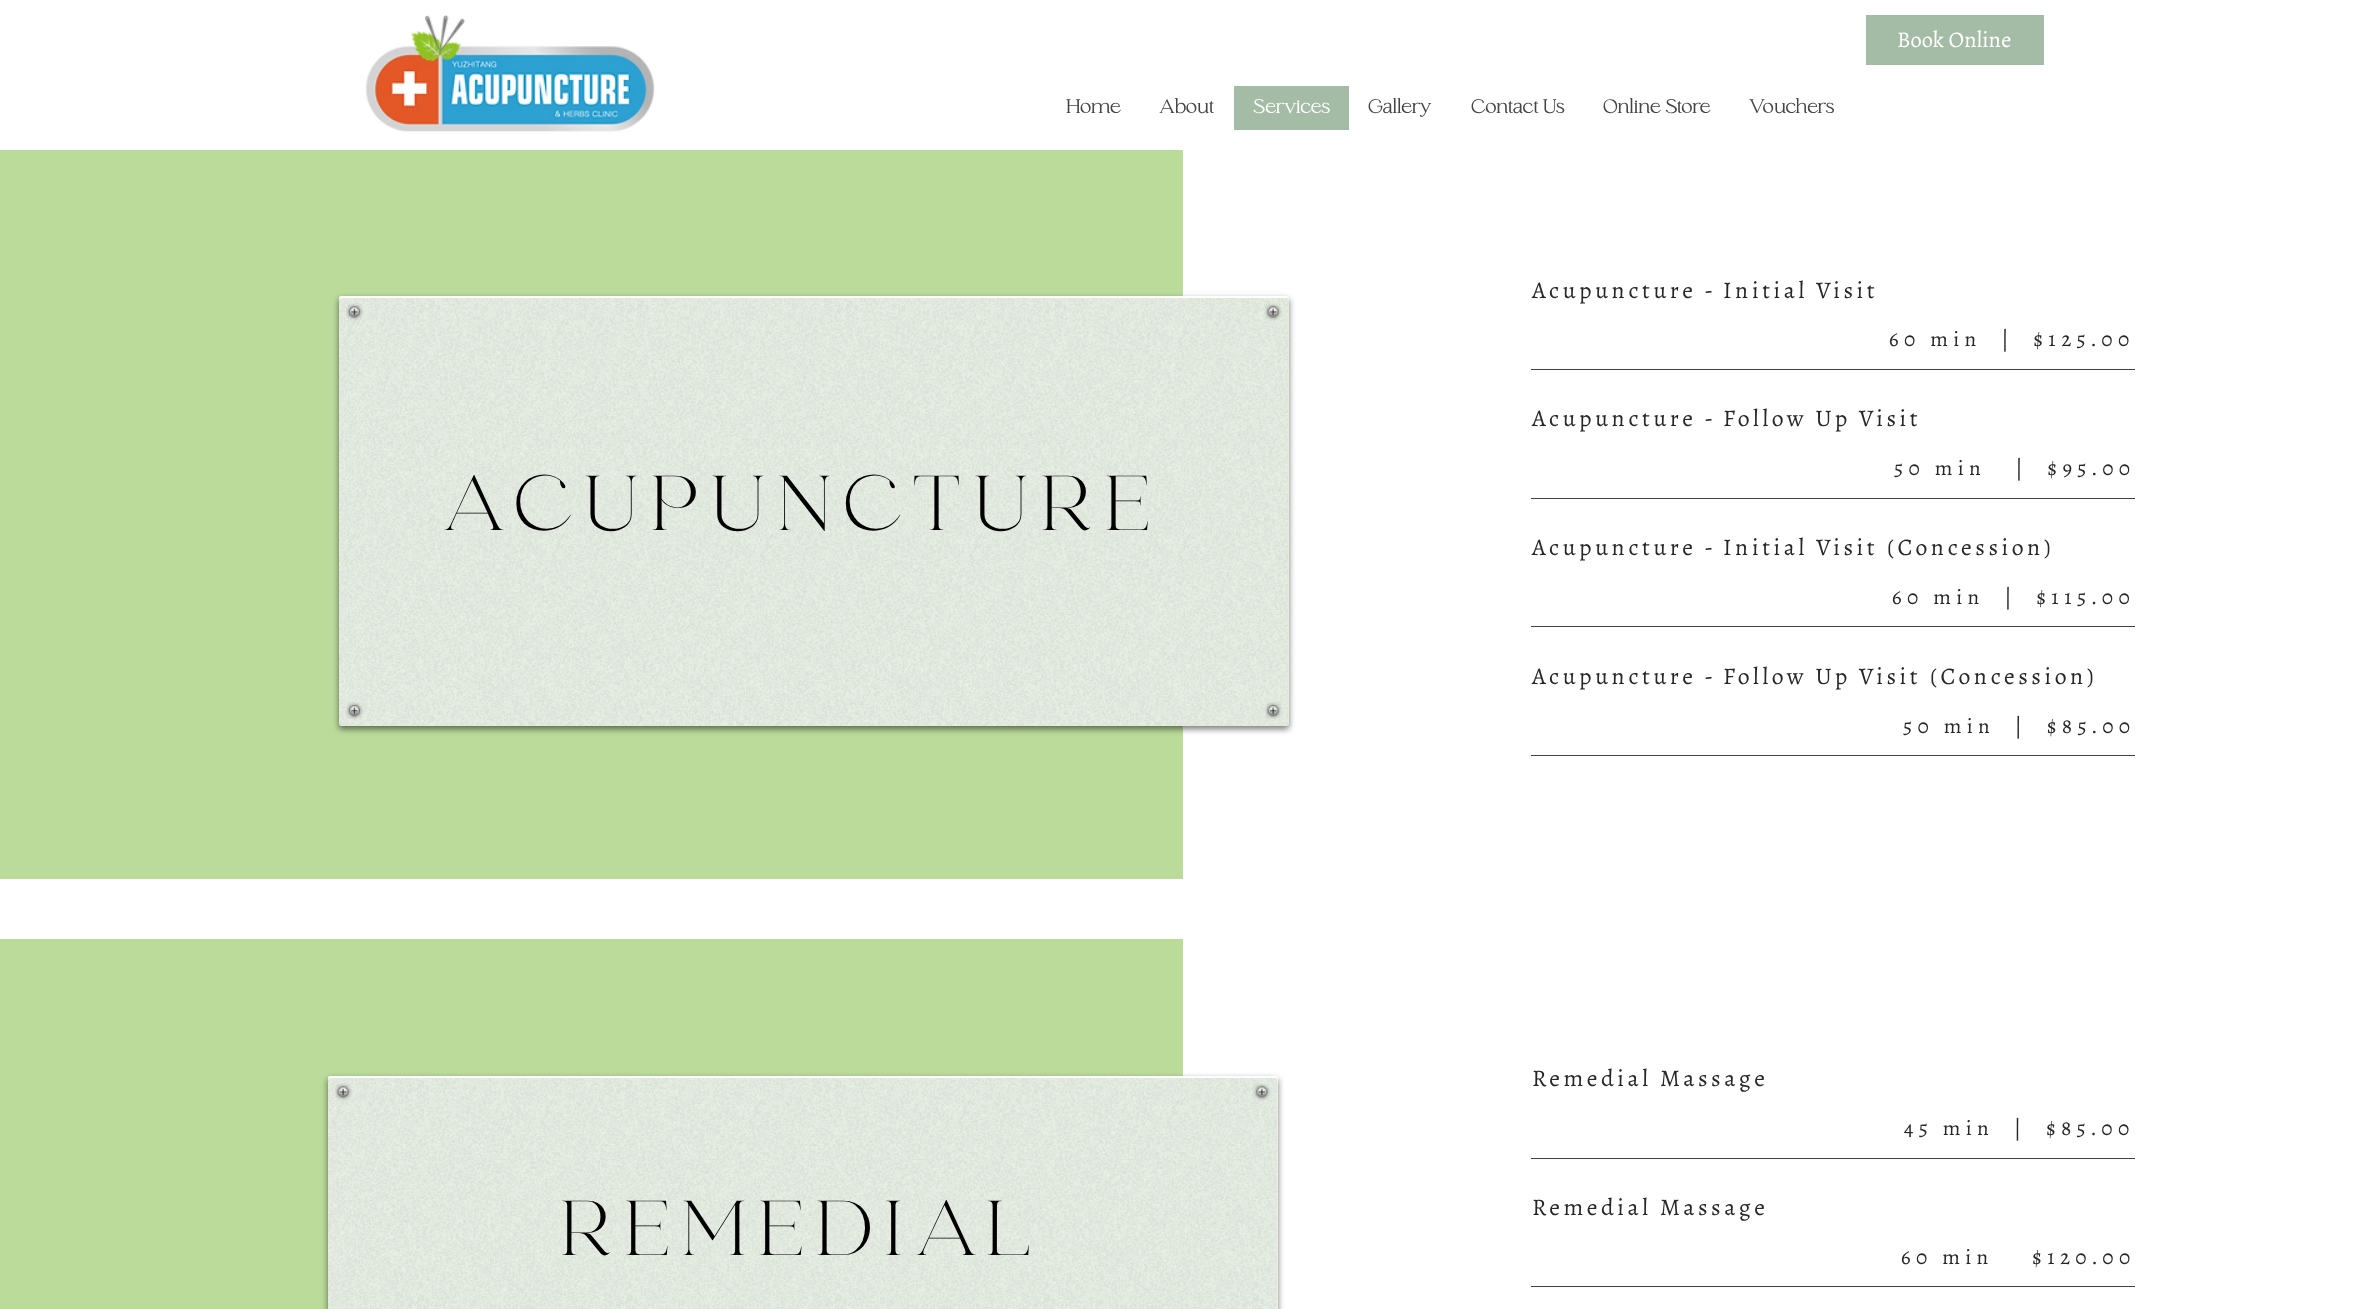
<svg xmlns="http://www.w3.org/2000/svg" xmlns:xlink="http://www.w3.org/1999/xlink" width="2363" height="1309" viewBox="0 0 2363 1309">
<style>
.cls-1{font:22.5px Sahitya;fill:#ffffff}
.cls-2{font:bold 18.75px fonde;fill:#444444}
.cls-3{font:bold 18.75px fonde;fill:#ffffff}
.cls-4{font:77.5px fonde;letter-spacing:11.6px;fill:#000000}
.cls-5{font:23.75px Sahitya;letter-spacing:3.55px;fill:#282626}
.cls-6{font:21.25px Sahitya;letter-spacing:5.3px;fill:#282626}
</style>
<rect width="100%" height="100%" fill="#ffffff"/>
<image xlink:href="image0.png" x="365" y="15" width="290" height="117"/>
<rect fill="#a4bca6" x="1866" y="15" width="178" height="50"/>
<rect fill="#a4bca6" x="1234" y="86" width="115" height="44"/>
<rect fill="#bbdb9b" x="0" y="150" width="1183" height="729"/>
<rect fill="#000000" fill-opacity="0.53" filter="blur(3px)" x="339" y="299" width="950" height="430" rx="2.5"/>
<rect fill="#e8efe5" x="339" y="296" width="950" height="430" rx="2.5"/>
<image xlink:href="image1.png" x="339" y="296" width="950" height="430"/>
<path fill="#ffffff" fill-opacity="0.92" d="M341 298H1286C1288 298 1289 299 1289 300C1289 298 1289 296 1286 296H342C339 296 339 298 339 300C339 299 340 298 341 298Z"/>
<image xlink:href="image2.png" x="346" y="303" width="17" height="18"/>
<image xlink:href="image3.png" x="1265" y="303" width="17" height="18"/>
<image xlink:href="image4.png" x="346" y="702" width="17" height="17"/>
<image xlink:href="image5.png" x="1265" y="702" width="17" height="17"/>
<rect fill="#424242" x="1531" y="369" width="604" height="1"/>
<rect fill="#424242" x="1531" y="498" width="604" height="1"/>
<rect fill="#424242" x="1531" y="626" width="604" height="1"/>
<rect fill="#424242" x="1531" y="755" width="604" height="1"/>
<rect fill="#bbdb9b" x="0" y="939" width="1183" height="370"/>
<rect fill="#000000" fill-opacity="0.53" filter="blur(3px)" x="328" y="1079" width="950" height="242" rx="2.5"/>
<rect fill="#e8efe5" x="328" y="1076" width="950" height="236" rx="2.5"/>
<image xlink:href="image6.png" x="328" y="1076" width="949" height="233"/>
<path fill="#ffffff" fill-opacity="0.92" d="M330 1078H1275C1276 1078 1278 1079 1278 1080C1278 1078 1278 1076 1276 1076H330C328 1076 328 1078 328 1080C328 1079 329 1078 330 1078Z"/>
<image xlink:href="image7.png" x="335" y="1083" width="17" height="18"/>
<image xlink:href="image8.png" x="1253" y="1083" width="18" height="18"/>
<rect fill="#424242" x="1531" y="1158" width="604" height="1"/>
<rect fill="#424242" x="1531" y="1286" width="604" height="1"/>
<text class="cls-1" x="1897" y="47">Book Online</text>
<text class="cls-2" x="1066" y="113">Home</text>
<text class="cls-2" x="1159" y="113">About</text>
<text class="cls-3" x="1253" y="113">Services</text>
<text class="cls-2" x="1368" y="113">Gallery</text>
<text class="cls-2" x="1471" y="113">Contact Us</text>
<text class="cls-2" x="1603" y="113">Online Store</text>
<text class="cls-2" x="1749" y="113">Vouchers</text>
<text class="cls-4" x="442" y="530">ACUPUNCTURE</text>
<text class="cls-5" x="1532" y="298">Acupuncture - Initial Visit</text>
<text class="cls-6" xml:space="preserve" x="1889" y="346">60 min  |  $125.00</text>
<text class="cls-5" x="1532" y="426">Acupuncture - Follow Up Visit</text>
<text class="cls-6" xml:space="preserve" x="1894" y="475">50 min   |  $95.00</text>
<text class="cls-5" x="1532" y="555">Acupuncture - Initial Visit (Concession)</text>
<text class="cls-6" xml:space="preserve" x="1892" y="604">60 min  |  $115.00</text>
<text class="cls-5" x="1532" y="684">Acupuncture - Follow Up Visit (Concession)</text>
<text class="cls-6" xml:space="preserve" x="1903" y="733">50 min  |  $85.00</text>
<text class="cls-4" x="560" y="1255">REMEDIAL</text>
<text class="cls-5" x="1532" y="1086">Remedial Massage</text>
<text class="cls-6" xml:space="preserve" x="1904" y="1135">45 min  |  $85.00</text>
<text class="cls-5" x="1532" y="1215">Remedial Massage</text>
<text class="cls-6" xml:space="preserve" x="1901" y="1264">60 min    $120.00</text>
</svg>
